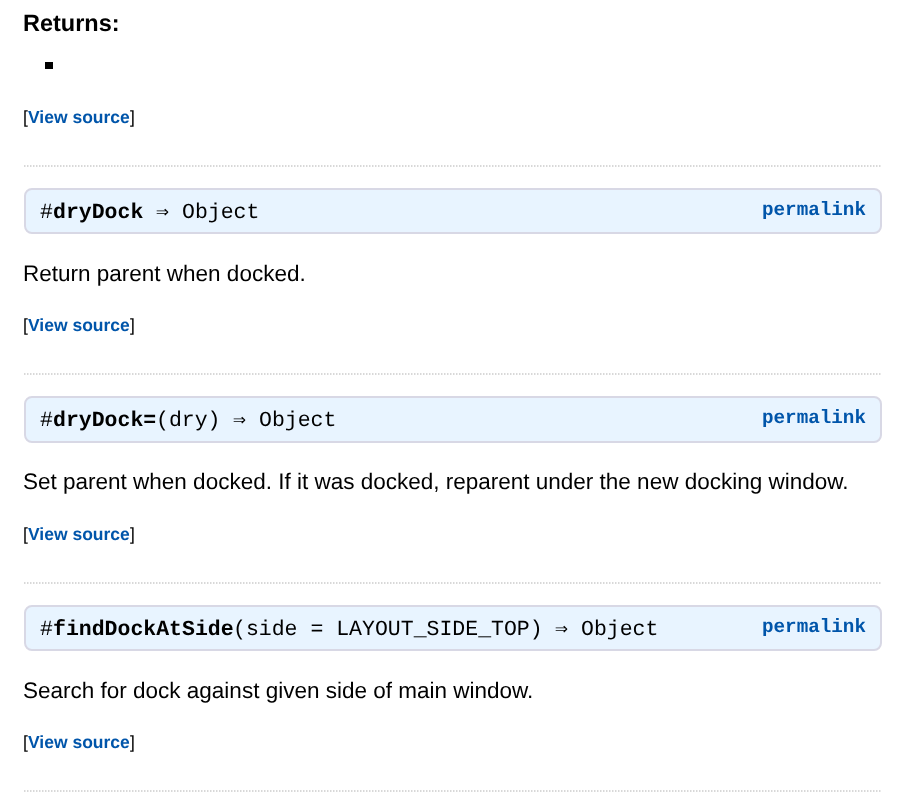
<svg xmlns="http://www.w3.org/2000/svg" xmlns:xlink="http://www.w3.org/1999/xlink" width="906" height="809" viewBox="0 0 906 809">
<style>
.cls-1{font:bold 23.5px Liberation Sans;fill:#000000}
.cls-2{font:17.5px Liberation Sans;fill:#000000}
.cls-3{font:bold 17.5px Liberation Sans;fill:#0055aa}
.cls-4{font:21.5px Liberation Mono;fill:#000000}
.cls-5{font:bold 21.5px Liberation Mono;fill:#000000}
.cls-6{font:21.5px DejaVu Sans Mono;fill:#000000}
.cls-7{font:bold 19.25px Liberation Mono;fill:#0055aa}
.cls-8{font:22.5px Liberation Sans;fill:#000000}
</style>
<rect width="100%" height="100%" fill="#ffffff"/>
<rect fill="#000000" x="45" y="62" width="8" height="7"/>
<path fill="none" stroke="#cccccc" stroke-width="1.5" stroke-dasharray="1.5 1.5" d="M24 166H882"/>
<rect fill="#e8f4ff" stroke="#d8d8e5" stroke-width="2" x="25" y="189" width="856" height="44" rx="7"/>
<path fill="none" stroke="#cccccc" stroke-width="1.5" stroke-dasharray="1.5 1.5" d="M24 374H882"/>
<rect fill="#e8f4ff" stroke="#d8d8e5" stroke-width="2" x="25" y="397" width="856" height="45" rx="7"/>
<path fill="none" stroke="#cccccc" stroke-width="1.5" stroke-dasharray="1.5 1.5" d="M24 583H882"/>
<rect fill="#e8f4ff" stroke="#d8d8e5" stroke-width="2" x="25" y="606" width="856" height="44" rx="7"/>
<path fill="none" stroke="#cccccc" stroke-width="1.5" stroke-dasharray="1.5 1.5" d="M24 791H882"/>
<text class="cls-1" x="23" y="31">Returns:</text>
<text class="cls-2" x="23" y="123">[</text>
<text class="cls-3" x="28" y="123">View source</text>
<text class="cls-2" x="130" y="123">]</text>
<text class="cls-4" x="40" y="218">#</text>
<text class="cls-5" x="53" y="218">dryDock</text>
<text class="cls-6" x="156" y="218">⇒</text>
<text class="cls-4" x="182" y="218">Object</text>
<text class="cls-7" x="762" y="215">permalink</text>
<text class="cls-8" x="23" y="281">Return parent when docked.</text>
<text class="cls-2" x="23" y="331">[</text>
<text class="cls-3" x="28" y="331">View source</text>
<text class="cls-2" x="130" y="331">]</text>
<text class="cls-4" x="40" y="426">#</text>
<text class="cls-5" x="53" y="426">dryDock=</text>
<text class="cls-4" x="156" y="426">(dry)</text>
<text class="cls-6" x="233" y="426">⇒</text>
<text class="cls-4" x="259" y="426">Object</text>
<text class="cls-7" x="762" y="423">permalink</text>
<text class="cls-8" x="23" y="489">Set parent when docked. If it was docked, reparent under the new docking window.</text>
<text class="cls-2" x="23" y="540">[</text>
<text class="cls-3" x="28" y="540">View source</text>
<text class="cls-2" x="130" y="540">]</text>
<text class="cls-4" x="40" y="635">#</text>
<text class="cls-5" x="53" y="635">findDockAtSide</text>
<text class="cls-4" x="233" y="635">(side = LAYOUT_SIDE_TOP)</text>
<text class="cls-6" x="555" y="635">⇒</text>
<text class="cls-4" x="581" y="635">Object</text>
<text class="cls-7" x="762" y="632">permalink</text>
<text class="cls-8" x="23" y="698">Search for dock against given side of main window.</text>
<text class="cls-2" x="23" y="748">[</text>
<text class="cls-3" x="28" y="748">View source</text>
<text class="cls-2" x="130" y="748">]</text>
</svg>
